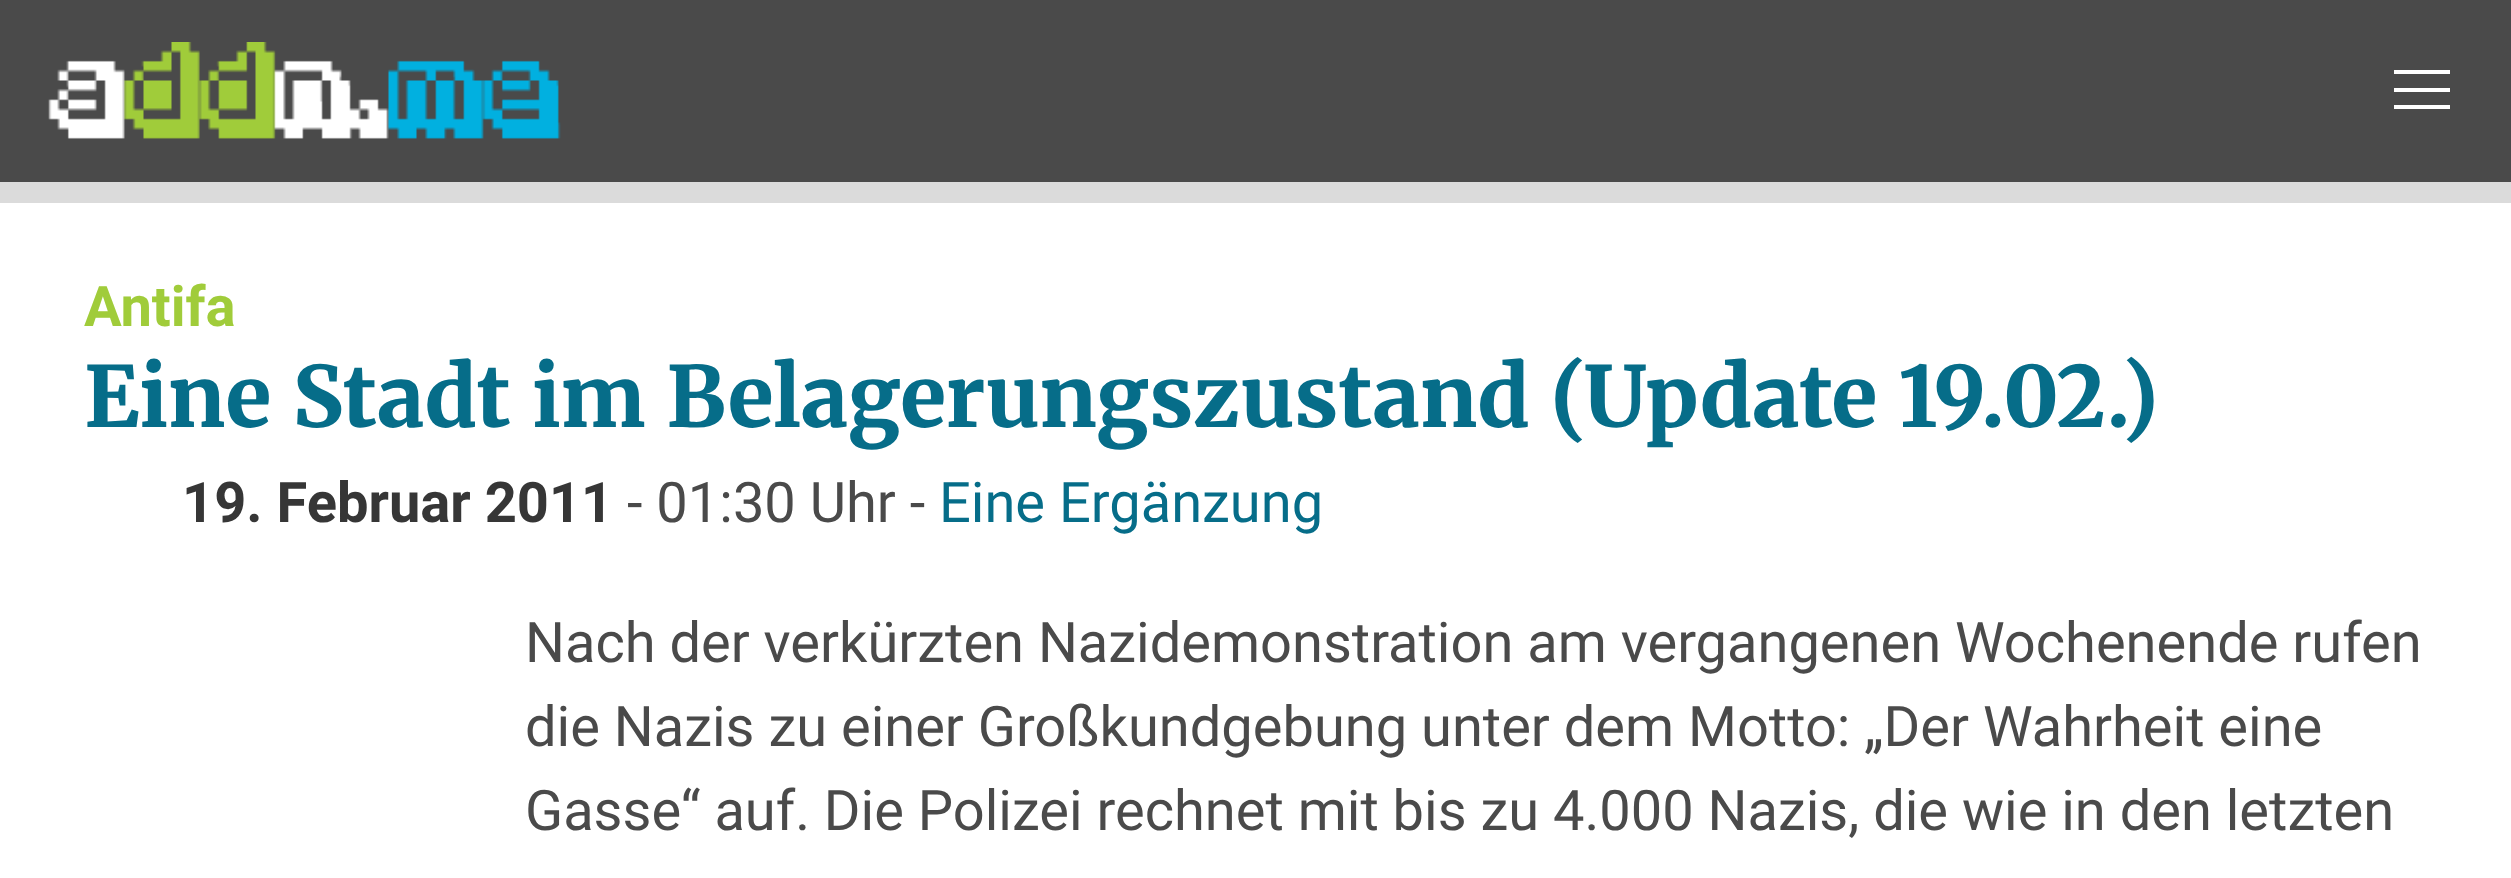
<svg xmlns="http://www.w3.org/2000/svg" xmlns:xlink="http://www.w3.org/1999/xlink" width="2511" height="878" viewBox="0 0 2511 878">
<style>
.cls-1{font:bold 56px Roboto;fill:#a0cc3a}
.cls-2{font:800 84px Merriweather;fill:#066d89}
.cls-3{font:bold 56px Roboto;fill:#363636}
.cls-4{font:56px Roboto;fill:#4a4a4a}
.cls-5{font:56px Roboto;fill:#066d89}
</style>
<rect width="100%" height="100%" fill="#ffffff"/>
<rect fill="#4a4a4a" x="0" y="0" width="2511" height="182"/>
<image xlink:href="image0.png" x="48" y="42" width="513" height="97"/>
<rect fill="#ffffff" x="2394" y="70" width="56" height="4"/>
<rect fill="#ffffff" x="2394" y="88" width="56" height="4"/>
<rect fill="#ffffff" x="2394" y="105" width="56" height="4"/>
<rect fill="#dbdbdb" x="0" y="182" width="2511" height="21"/>
<text class="cls-1" x="84" y="326">Antifa</text>
<text class="cls-2" x="84" y="427" word-spacing="1">Eine Stadt im Belagerungszustand (Update 19.02.)</text>
<text class="cls-3" x="182" y="522">19. Februar 2011</text>
<text class="cls-4" x="627" y="522">- 01:30 Uhr -</text>
<text class="cls-5" x="939" y="522">Eine Ergänzung</text>
<text class="cls-4"><tspan x="525" y="662">Nach der verkürzten Nazidemonstration am vergangenen Wochenende rufen</tspan><tspan x="525" y="746">die Nazis zu einer Großkundgebung unter dem Motto: „Der Wahrheit eine</tspan><tspan x="525" y="830">Gasse“ auf. Die Polizei rechnet mit bis zu 4.000 Nazis, die wie in den letzten</tspan></text>
</svg>
